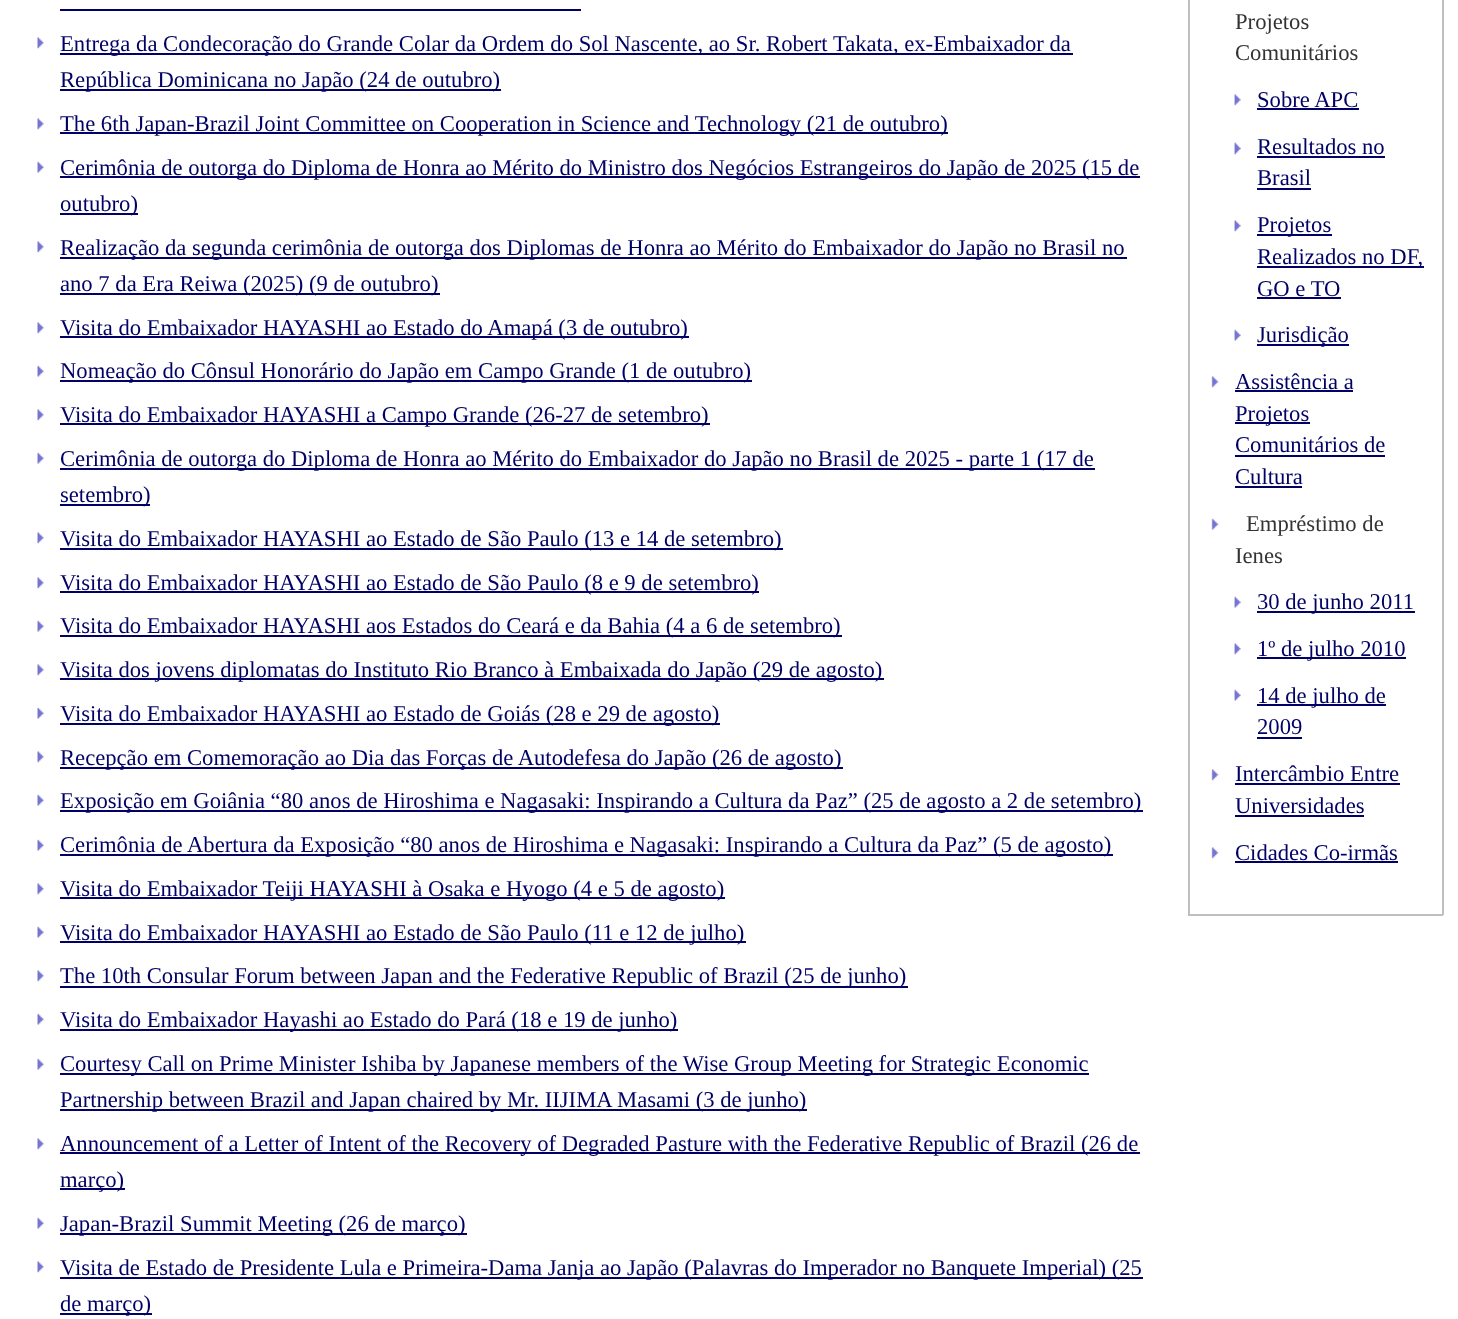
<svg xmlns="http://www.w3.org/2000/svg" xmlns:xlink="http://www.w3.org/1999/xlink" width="1458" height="1319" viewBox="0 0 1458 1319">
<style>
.cls-1{font:22.65px Liberation Serif;fill:#000066}
.cls-2{font:22.65px Liberation Serif;fill:#333333}
</style>
<rect width="100%" height="100%" fill="#ffffff"/>
<rect fill="#000066" x="60" y="9" width="521" height="2"/>
<image xlink:href="image0.png" x="37" y="37" width="7" height="12"/>
<rect fill="#000066" x="60" y="53" width="1013" height="2"/>
<rect fill="#000066" x="60" y="89" width="441" height="2"/>
<image xlink:href="image0.png" x="37" y="118" width="7" height="12"/>
<rect fill="#000066" x="60" y="132" width="888" height="2"/>
<image xlink:href="image1.png" x="37" y="161" width="7" height="12"/>
<rect fill="#000066" x="60" y="176" width="1080" height="2"/>
<rect fill="#000066" x="60" y="213" width="78" height="2"/>
<image xlink:href="image0.png" x="37" y="241" width="7" height="12"/>
<rect fill="#000066" x="60" y="257" width="1067" height="2"/>
<rect fill="#000066" x="60" y="293" width="380" height="2"/>
<image xlink:href="image0.png" x="37" y="322" width="7" height="12"/>
<rect fill="#000066" x="60" y="336" width="629" height="2"/>
<image xlink:href="image1.png" x="37" y="365" width="7" height="12"/>
<rect fill="#000066" x="60" y="380" width="692" height="2"/>
<image xlink:href="image0.png" x="37" y="409" width="7" height="12"/>
<rect fill="#000066" x="60" y="423" width="650" height="2"/>
<image xlink:href="image1.png" x="37" y="452" width="7" height="12"/>
<rect fill="#000066" x="60" y="468" width="1035" height="2"/>
<rect fill="#000066" x="60" y="504" width="90" height="2"/>
<image xlink:href="image0.png" x="37" y="532" width="7" height="12"/>
<rect fill="#000066" x="60" y="548" width="723" height="2"/>
<image xlink:href="image0.png" x="37" y="577" width="7" height="12"/>
<rect fill="#000066" x="60" y="591" width="699" height="2"/>
<image xlink:href="image1.png" x="37" y="620" width="7" height="12"/>
<rect fill="#000066" x="60" y="635" width="782" height="2"/>
<image xlink:href="image0.png" x="37" y="664" width="7" height="12"/>
<rect fill="#000066" x="60" y="678" width="824" height="2"/>
<image xlink:href="image1.png" x="37" y="707" width="7" height="12"/>
<rect fill="#000066" x="60" y="723" width="660" height="2"/>
<image xlink:href="image0.png" x="37" y="751" width="7" height="12"/>
<rect fill="#000066" x="60" y="767" width="783" height="2"/>
<image xlink:href="image1.png" x="37" y="794" width="7" height="12"/>
<rect fill="#000066" x="60" y="810" width="1083" height="2"/>
<image xlink:href="image1.png" x="37" y="839" width="7" height="12"/>
<rect fill="#000066" x="60" y="854" width="1053" height="2"/>
<image xlink:href="image0.png" x="37" y="883" width="7" height="12"/>
<rect fill="#000066" x="60" y="897" width="665" height="2"/>
<image xlink:href="image1.png" x="37" y="926" width="7" height="12"/>
<rect fill="#000066" x="60" y="941" width="686" height="2"/>
<image xlink:href="image0.png" x="37" y="970" width="7" height="12"/>
<rect fill="#000066" x="60" y="986" width="848" height="2"/>
<image xlink:href="image1.png" x="37" y="1013" width="7" height="12"/>
<rect fill="#000066" x="60" y="1029" width="618" height="2"/>
<image xlink:href="image1.png" x="37" y="1058" width="7" height="12"/>
<rect fill="#000066" x="60" y="1073" width="1029" height="2"/>
<rect fill="#000066" x="60" y="1109" width="747" height="2"/>
<image xlink:href="image0.png" x="37" y="1138" width="7" height="12"/>
<rect fill="#000066" x="60" y="1152" width="1080" height="2"/>
<rect fill="#000066" x="60" y="1188" width="65" height="2"/>
<image xlink:href="image1.png" x="37" y="1217" width="7" height="12"/>
<rect fill="#000066" x="60" y="1233" width="407" height="2"/>
<image xlink:href="image0.png" x="37" y="1261" width="7" height="12"/>
<rect fill="#000066" x="60" y="1277" width="1083" height="2"/>
<rect fill="#000066" x="60" y="1313" width="92" height="2"/>
<rect fill="#bfbfbf" x="1442" y="0" width="2" height="915"/>
<rect fill="#bfbfbf" x="1188" y="914" width="255" height="2"/>
<rect fill="#bfbfbf" x="1188" y="0" width="2" height="915"/>
<image xlink:href="image2.png" x="1234" y="94" width="7" height="12"/>
<rect fill="#000066" x="1257" y="108" width="102" height="2"/>
<image xlink:href="image3.png" x="1234" y="142" width="7" height="13"/>
<rect fill="#000066" x="1257" y="156" width="128" height="2"/>
<rect fill="#000066" x="1257" y="188" width="54" height="2"/>
<image xlink:href="image2.png" x="1234" y="220" width="7" height="12"/>
<rect fill="#000066" x="1257" y="234" width="75" height="2"/>
<rect fill="#000066" x="1257" y="266" width="167" height="2"/>
<rect fill="#000066" x="1257" y="297" width="84" height="2"/>
<image xlink:href="image4.png" x="1234" y="329" width="7" height="12"/>
<rect fill="#000066" x="1257" y="344" width="92" height="2"/>
<image xlink:href="image5.png" x="1211" y="376" width="8" height="12"/>
<rect fill="#000066" x="1235" y="390" width="118" height="2"/>
<rect fill="#000066" x="1235" y="422" width="75" height="2"/>
<rect fill="#000066" x="1235" y="455" width="150" height="2"/>
<rect fill="#000066" x="1235" y="486" width="67" height="2"/>
<image xlink:href="image6.png" x="1211" y="518" width="8" height="12"/>
<image xlink:href="image4.png" x="1234" y="596" width="7" height="12"/>
<rect fill="#000066" x="1257" y="611" width="158" height="2"/>
<image xlink:href="image2.png" x="1234" y="643" width="7" height="12"/>
<rect fill="#000066" x="1257" y="657" width="149" height="2"/>
<image xlink:href="image4.png" x="1234" y="689" width="7" height="12"/>
<rect fill="#000066" x="1257" y="704" width="129" height="2"/>
<rect fill="#000066" x="1257" y="737" width="45" height="2"/>
<image xlink:href="image5.png" x="1211" y="769" width="8" height="12"/>
<rect fill="#000066" x="1235" y="783" width="165" height="2"/>
<rect fill="#000066" x="1235" y="815" width="129" height="2"/>
<image xlink:href="image5.png" x="1211" y="847" width="8" height="12"/>
<rect fill="#000066" x="1235" y="861" width="163" height="2"/>
<text class="cls-1"><tspan x="60" y="51">Entrega da Condecoração do Grande Colar da Ordem do Sol Nascente, ao Sr. Robert Takata, ex-Embaixador da</tspan><tspan x="60" y="87">República Dominicana no Japão (24 de outubro)</tspan><tspan x="60" y="131">The 6th Japan-Brazil Joint Committee on Cooperation in Science and Technology (21 de outubro)</tspan><tspan x="60" y="175">Cerimônia de outorga do Diploma de Honra ao Mérito do Ministro dos Negócios Estrangeiros do Japão de 2025 (15 de</tspan><tspan x="60" y="211">outubro)</tspan><tspan x="60" y="255">Realização da segunda cerimônia de outorga dos Diplomas de Honra ao Mérito do Embaixador do Japão no Brasil no</tspan><tspan x="60" y="291">ano 7 da Era Reiwa (2025) (9 de outubro)</tspan><tspan x="60" y="335">Visita do Embaixador HAYASHI ao Estado do Amapá (3 de outubro)</tspan><tspan x="60" y="378">Nomeação do Cônsul Honorário do Japão em Campo Grande (1 de outubro)</tspan><tspan x="60" y="422">Visita do Embaixador HAYASHI a Campo Grande (26-27 de setembro)</tspan><tspan x="60" y="466">Cerimônia de outorga do Diploma de Honra ao Mérito do Embaixador do Japão no Brasil de 2025 - parte 1 (17 de</tspan><tspan x="60" y="502">setembro)</tspan><tspan x="60" y="546">Visita do Embaixador HAYASHI ao Estado de São Paulo (13 e 14 de setembro)</tspan><tspan x="60" y="590">Visita do Embaixador HAYASHI ao Estado de São Paulo (8 e 9 de setembro)</tspan><tspan x="60" y="633">Visita do Embaixador HAYASHI aos Estados do Ceará e da Bahia (4 a 6 de setembro)</tspan><tspan x="60" y="677">Visita dos jovens diplomatas do Instituto Rio Branco à Embaixada do Japão (29 de agosto)</tspan><tspan x="60" y="721">Visita do Embaixador HAYASHI ao Estado de Goiás (28 e 29 de agosto)</tspan><tspan x="60" y="765">Recepção em Comemoração ao Dia das Forças de Autodefesa do Japão (26 de agosto)</tspan><tspan x="60" y="808">Exposição em Goiânia “80 anos de Hiroshima e Nagasaki: Inspirando a Cultura da Paz” (25 de agosto a 2 de setembro)</tspan><tspan x="60" y="852">Cerimônia de Abertura da Exposição “80 anos de Hiroshima e Nagasaki: Inspirando a Cultura da Paz” (5 de agosto)</tspan><tspan x="60" y="896">Visita do Embaixador Teiji HAYASHI à Osaka e Hyogo (4 e 5 de agosto)</tspan><tspan x="60" y="940">Visita do Embaixador HAYASHI ao Estado de São Paulo (11 e 12 de julho)</tspan><tspan x="60" y="983">The 10th Consular Forum between Japan and the Federative Republic of Brazil (25 de junho)</tspan><tspan x="60" y="1027">Visita do Embaixador Hayashi ao Estado do Pará (18 e 19 de junho)</tspan><tspan x="60" y="1071">Courtesy Call on Prime Minister Ishiba by Japanese members of the Wise Group Meeting for Strategic Economic</tspan><tspan x="60" y="1107">Partnership between Brazil and Japan chaired by Mr. IIJIMA Masami (3 de junho)</tspan><tspan x="60" y="1151">Announcement of a Letter of Intent of the Recovery of Degraded Pasture with the Federative Republic of Brazil (26 de</tspan><tspan x="60" y="1187">março)</tspan><tspan x="60" y="1231">Japan-Brazil Summit Meeting (26 de março)</tspan><tspan x="60" y="1275">Visita de Estado de Presidente Lula e Primeira-Dama Janja ao Japão (Palavras do Imperador no Banquete Imperial) (25</tspan><tspan x="60" y="1311">de março)</tspan></text>
<text class="cls-2"><tspan x="1235" y="29">Projetos</tspan><tspan x="1235" y="60">Comunitários</tspan></text>
<text class="cls-1" x="1257" y="107">Sobre APC</text>
<text class="cls-1"><tspan x="1257" y="154">Resultados no</tspan><tspan x="1257" y="185">Brasil</tspan></text>
<text class="cls-1"><tspan x="1257" y="232">Projetos</tspan><tspan x="1257" y="264">Realizados no DF,</tspan><tspan x="1257" y="296">GO e TO</tspan></text>
<text class="cls-1" x="1257" y="342">Jurisdição</text>
<text class="cls-1"><tspan x="1235" y="389">Assistência a</tspan><tspan x="1235" y="421">Projetos</tspan><tspan x="1235" y="452">Comunitários de</tspan><tspan x="1235" y="484">Cultura</tspan></text>
<text class="cls-2" x="1246" y="531">Empréstimo de</text>
<text class="cls-2" x="1235" y="563">Ienes</text>
<text class="cls-1" x="1257" y="609">30 de junho 2011</text>
<text class="cls-1" x="1257" y="656">1º de julho 2010</text>
<text class="cls-1"><tspan x="1257" y="703">14 de julho de</tspan><tspan x="1257" y="734">2009</tspan></text>
<text class="cls-1"><tspan x="1235" y="781">Intercâmbio Entre</tspan><tspan x="1235" y="813">Universidades</tspan></text>
<text class="cls-1" x="1235" y="860">Cidades Co-irmãs</text>
</svg>
